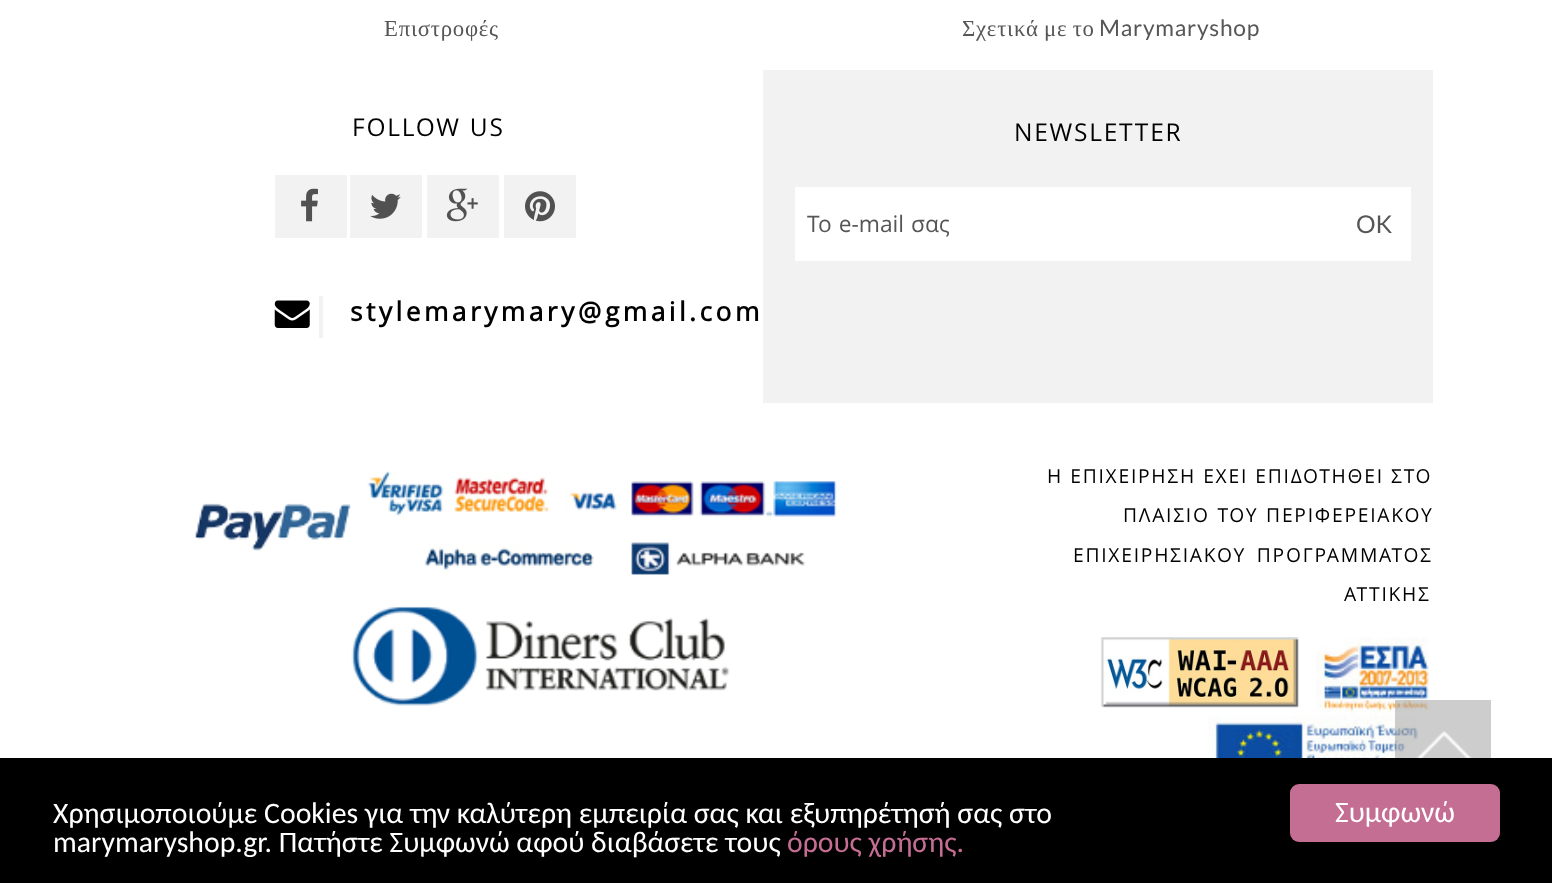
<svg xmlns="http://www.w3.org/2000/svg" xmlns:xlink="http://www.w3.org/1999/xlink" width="1552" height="883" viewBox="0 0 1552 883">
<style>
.cls-1{font:22.75px Liberation Serif;letter-spacing:0.75px;fill:#565656}
.cls-2{font:22.75px Lato;letter-spacing:0.75px;fill:#565656}
.cls-3{font:24.5px Open Sans;letter-spacing:1.75px;fill:#000000}
.cls-4{font:bold 26.25px Open Sans;letter-spacing:3.5px;fill:#000000}
.cls-5{font:22.75px Open Sans;fill:#565656}
.cls-6{font:24.5px Lato;fill:#565656}
.cls-7{font:19.25px Open Sans;letter-spacing:1.75px;fill:#000000}
.cls-8{font:29.75px Carlito;fill:#ffffff}
.cls-9{font:29.75px Carlito;fill:#c46e93}
</style>
<rect width="100%" height="100%" fill="#ffffff"/>
<rect fill="#f2f2f2" x="275" y="175" width="72" height="63"/>
<image xlink:href="image0.png" x="301" y="188" width="17" height="34"/>
<rect fill="#f2f2f2" x="350" y="175" width="72" height="63"/>
<image xlink:href="image1.png" x="370" y="193" width="31" height="26"/>
<rect fill="#f2f2f2" x="427" y="175" width="72" height="63"/>
<image xlink:href="image2.png" x="446" y="188" width="32" height="34"/>
<rect fill="#f2f2f2" x="504" y="175" width="72" height="63"/>
<image xlink:href="image3.png" x="525" y="191" width="30" height="31"/>
<rect fill="#f2f2f2" x="319" y="296" width="4" height="42"/>
<image xlink:href="image4.png" x="274" y="300" width="36" height="28"/>
<rect fill="#f2f2f2" x="763" y="70" width="670" height="333"/>
<rect fill="#ffffff" x="795" y="187" width="616" height="74"/>
<image xlink:href="image5.png" x="195" y="503" width="156" height="48"/>
<image xlink:href="image6.png" x="367" y="471" width="470" height="104"/>
<image xlink:href="image7.png" x="351" y="606" width="379" height="100"/>
<image xlink:href="image8.png" x="1100" y="637" width="199" height="71"/>
<image xlink:href="image9.png" x="1316" y="637" width="113" height="76"/>
<image xlink:href="image10.png" x="1207" y="712" width="211" height="46"/>
<rect fill="#9b9b9b" fill-opacity="0.5" x="1395" y="700" width="96" height="58"/>
<image xlink:href="image11.png" x="1415" y="731" width="58" height="27"/>
<rect fill="#000000" x="0" y="758" width="1552" height="125"/>
<rect fill="#c46e93" x="1290" y="784" width="210" height="58" rx="9"/>
<text class="cls-1" x="384" y="36">Επιστροφές</text>
<text class="cls-1" x="962" y="36" word-spacing="-1">Σχετικά με το</text>
<text class="cls-2" x="1099" y="36">Marymaryshop</text>
<text class="cls-3" x="352" y="136" word-spacing="1">FOLLOW US</text>
<text class="cls-4" x="350" y="321">stylemarymary@gmail.com</text>
<text class="cls-3" x="1014" y="141">NEWSLETTER</text>
<text class="cls-5" x="807" y="232" word-spacing="1">Το e-mail σας</text>
<text class="cls-6" x="1356" y="233">OK</text>
<text class="cls-7" x="1047" y="483" word-spacing="0.5">Η ΕΠΙΧΕΙΡΗΣΗ ΕΧΕΙ ΕΠΙΔΟΤΗΘΕΙ ΣΤΟ</text>
<text class="cls-7" x="1123" y="522" word-spacing="1">ΠΛΑΙΣΙΟ ΤΟΥ ΠΕΡΙΦΕΡΕΙΑΚΟΥ</text>
<text class="cls-7" x="1073" y="562" word-spacing="4">ΕΠΙΧΕΙΡΗΣΙΑΚΟΥ ΠΡΟΓΡΑΜΜΑΤΟΣ</text>
<text class="cls-7" x="1344" y="601">ΑΤΤΙΚΗΣ</text>
<text class="cls-8"><tspan x="53" y="823">Xρησιμοποιούμε Cookies για την καλύτερη εμπειρία σας και εξυπηρέτησή σας στο</tspan><tspan x="53" y="852">marymaryshop.gr. Πατήστε Συμφωνώ αφού διαβάσετε τους</tspan></text>
<text class="cls-9" x="787" y="852">όρους χρήσης.</text>
<text class="cls-8" x="1335" y="822">Συμφωνώ</text>
</svg>
